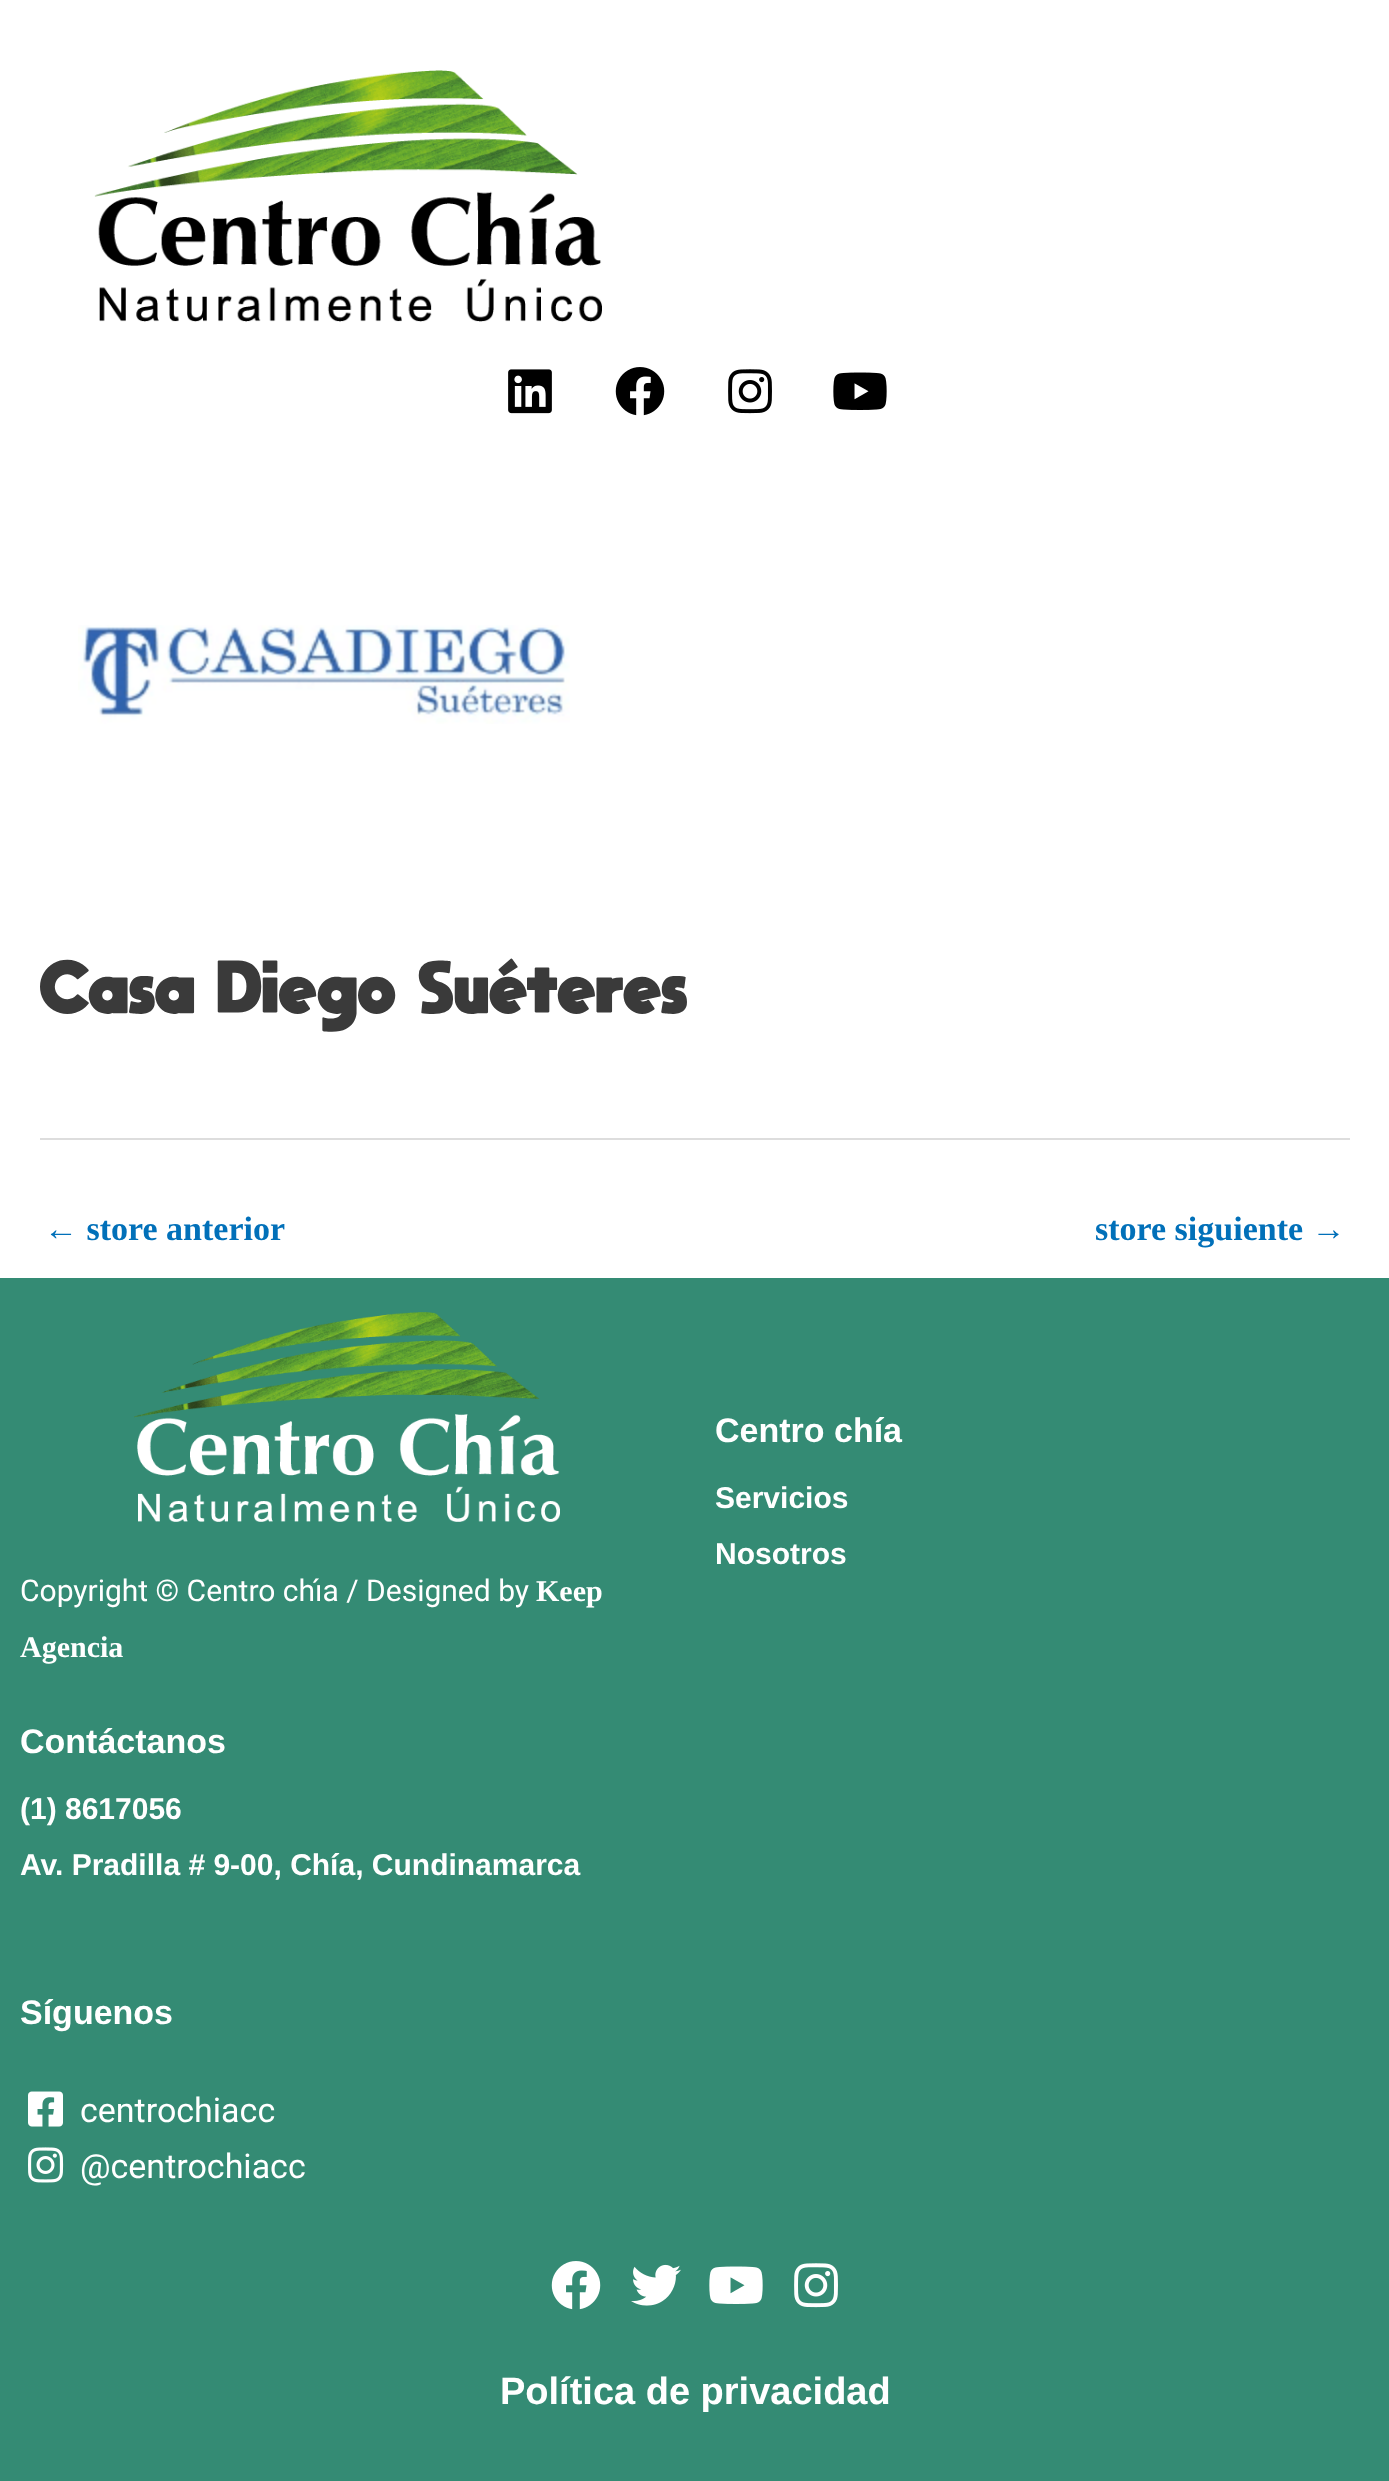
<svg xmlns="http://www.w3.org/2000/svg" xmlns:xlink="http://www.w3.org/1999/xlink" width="1389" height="2481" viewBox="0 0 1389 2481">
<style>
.cls-1{font:900 52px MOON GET;fill:#3a3a3a}
.cls-2{font:bold 34px Liberation Serif;fill:#0170b9}
.cls-3{font:bold 34px Liberation Sans;fill:#ffffff}
.cls-4{font:bold 30px Liberation Sans;fill:#ffffff}
.cls-5{font:30px Roboto;fill:#ffffff}
.cls-6{font:bold 30px Liberation Serif;fill:#ffffff}
.cls-7{font:34px Roboto;fill:#ffffff}
.cls-8{font:bold 38px Liberation Sans;fill:#ffffff}
</style>
<rect width="100%" height="100%" fill="#ffffff"/>
<image xlink:href="image0.png" x="94" y="70" width="508" height="252"/>
<image xlink:href="image1.png" x="508" y="369" width="44" height="45"/>
<image xlink:href="image2.png" x="615" y="367" width="50" height="49"/>
<image xlink:href="image3.png" x="728" y="369" width="44" height="45"/>
<image xlink:href="image4.png" x="833" y="372" width="54" height="38"/>
<image xlink:href="image5.png" x="78" y="625" width="492" height="99"/>
<rect fill="#dddddd" x="40" y="1138" width="1310" height="2"/>
<rect fill="#348b74" x="0" y="1278" width="1389" height="1203"/>
<image xlink:href="image6.png" x="134" y="1312" width="426" height="210"/>
<image xlink:href="image7.png" x="28" y="2091" width="35" height="36"/>
<image xlink:href="image8.png" x="28" y="2147" width="36" height="36"/>
<image xlink:href="image9.png" x="551" y="2261" width="50" height="49"/>
<image xlink:href="image10.png" x="631" y="2264" width="50" height="42"/>
<image xlink:href="image11.png" x="709" y="2266" width="54" height="38"/>
<image xlink:href="image12.png" x="794" y="2263" width="44" height="45"/>
<text class="cls-1" x="40" y="1002">Casa Diego Suéteres</text>
<text class="cls-2" x="44" y="1240">← store anterior</text>
<text class="cls-2" x="1095" y="1240">store siguiente →</text>
<text class="cls-3" x="715" y="1442">Centro chía</text>
<text class="cls-4"><tspan x="715" y="1508">Servicios</tspan><tspan x="715" y="1564">Nosotros</tspan></text>
<text class="cls-5" x="20" y="1601">Copyright © Centro chía / Designed by</text>
<text class="cls-6" x="536" y="1601">Keep</text>
<text class="cls-6" x="20" y="1657">Agencia</text>
<text class="cls-3" x="20" y="1753">Contáctanos</text>
<text class="cls-4"><tspan x="20" y="1819">(1) 8617056</tspan><tspan x="20" y="1875">Av. Pradilla # 9-00, Chía, Cundinamarca</tspan></text>
<text class="cls-3" x="20" y="2024">Síguenos</text>
<text class="cls-7"><tspan x="80" y="2122">centrochiacc</tspan><tspan x="80" y="2178">@centrochiacc</tspan></text>
<text class="cls-8" x="500" y="2404">Política de privacidad</text>
</svg>
